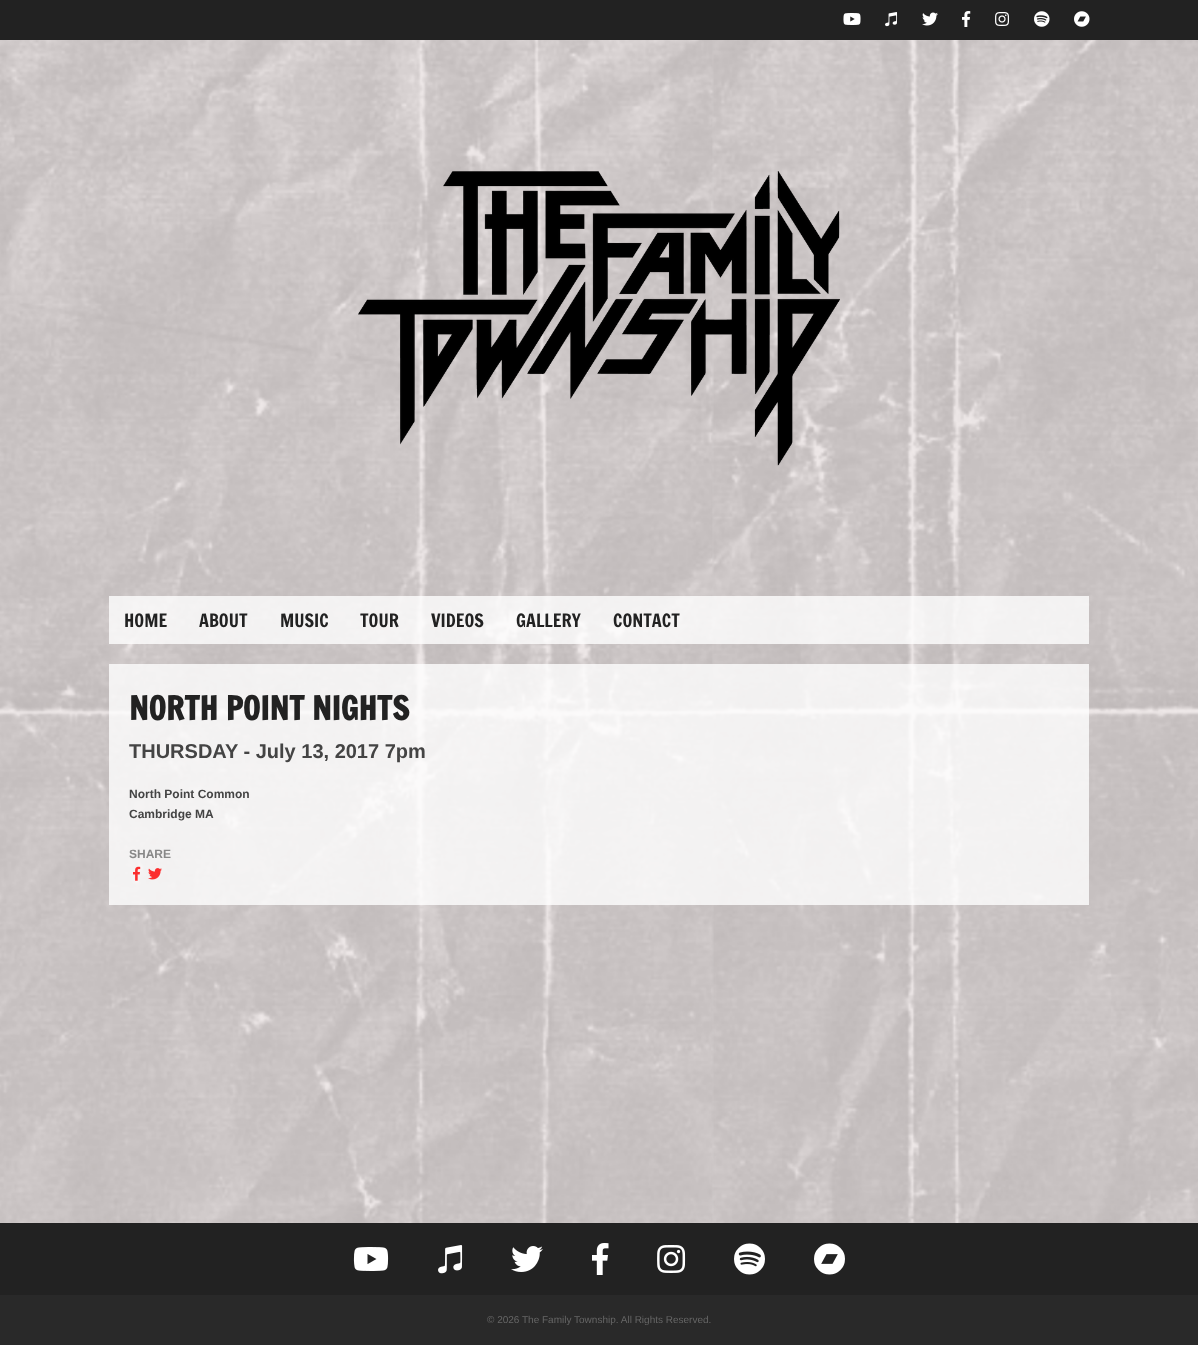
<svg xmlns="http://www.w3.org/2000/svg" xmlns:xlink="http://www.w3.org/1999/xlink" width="1198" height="1345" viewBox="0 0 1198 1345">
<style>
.cls-1{font:18px Francois One;fill:#222222}
.cls-2{font:bold 32px Francois One;fill:#222222}
.cls-3{font:bold 20px Liberation Sans;fill:#444444}
.cls-4{font:bold 12px Liberation Sans;fill:#444444}
.cls-5{font:bold 12px Liberation Sans;fill:#888888}
.cls-6{font:10px Liberation Sans;fill:#666666}
</style>
<rect width="100%" height="100%" fill="#ffffff"/>
<image xlink:href="image0.png" x="0" y="40" width="1198" height="1183"/>
<rect fill="#222222" x="0" y="0" width="1198" height="40"/>
<image xlink:href="image1.png" x="843" y="13" width="18" height="12"/>
<image xlink:href="image2.png" x="885" y="12" width="13" height="15"/>
<image xlink:href="image3.png" x="922" y="12" width="16" height="14"/>
<image xlink:href="image4.png" x="962" y="11" width="9" height="16"/>
<image xlink:href="image5.png" x="995" y="12" width="15" height="14"/>
<image xlink:href="image6.png" x="1034" y="11" width="16" height="16"/>
<image xlink:href="image7.png" x="1074" y="11" width="16" height="16"/>
<image xlink:href="image8.png" x="358" y="171" width="482" height="295"/>
<rect fill="#ffffff" fill-opacity="0.79" x="109" y="596" width="980" height="48"/>
<rect fill="#ffffff" fill-opacity="0.79" x="109" y="664" width="980" height="241"/>
<image xlink:href="image9.png" x="133" y="866" width="8" height="15"/>
<image xlink:href="image10.png" x="148" y="868" width="14" height="12"/>
<rect fill="#222222" x="0" y="1223" width="1198" height="72"/>
<image xlink:href="image11.png" x="353" y="1247" width="36" height="24"/>
<image xlink:href="image12.png" x="438" y="1245" width="25" height="29"/>
<image xlink:href="image13.png" x="511" y="1246" width="32" height="26"/>
<image xlink:href="image14.png" x="592" y="1243" width="17" height="32"/>
<image xlink:href="image15.png" x="657" y="1245" width="29" height="28"/>
<image xlink:href="image16.png" x="734" y="1243" width="31" height="32"/>
<image xlink:href="image17.png" x="814" y="1243" width="31" height="32"/>
<rect fill="#292929" x="0" y="1295" width="1198" height="50"/>
<text class="cls-1" x="124" y="627">HOME</text>
<text class="cls-1" x="199" y="627">ABOUT</text>
<text class="cls-1" x="280" y="627">MUSIC</text>
<text class="cls-1" x="360" y="627">TOUR</text>
<text class="cls-1" x="431" y="627">VIDEOS</text>
<text class="cls-1" x="516" y="627">GALLERY</text>
<text class="cls-1" x="613" y="627">CONTACT</text>
<text class="cls-2" x="129" y="720">NORTH POINT NIGHTS</text>
<text class="cls-3" x="129" y="758">THURSDAY - July 13, 2017 7pm</text>
<text class="cls-4"><tspan x="129" y="798">North Point Common</tspan><tspan x="129" y="818">Cambridge MA</tspan></text>
<text class="cls-5" x="129" y="858">SHARE</text>
<text class="cls-6" x="487" y="1323">© 2026 The Family Township. All Rights Reserved.</text>
</svg>
